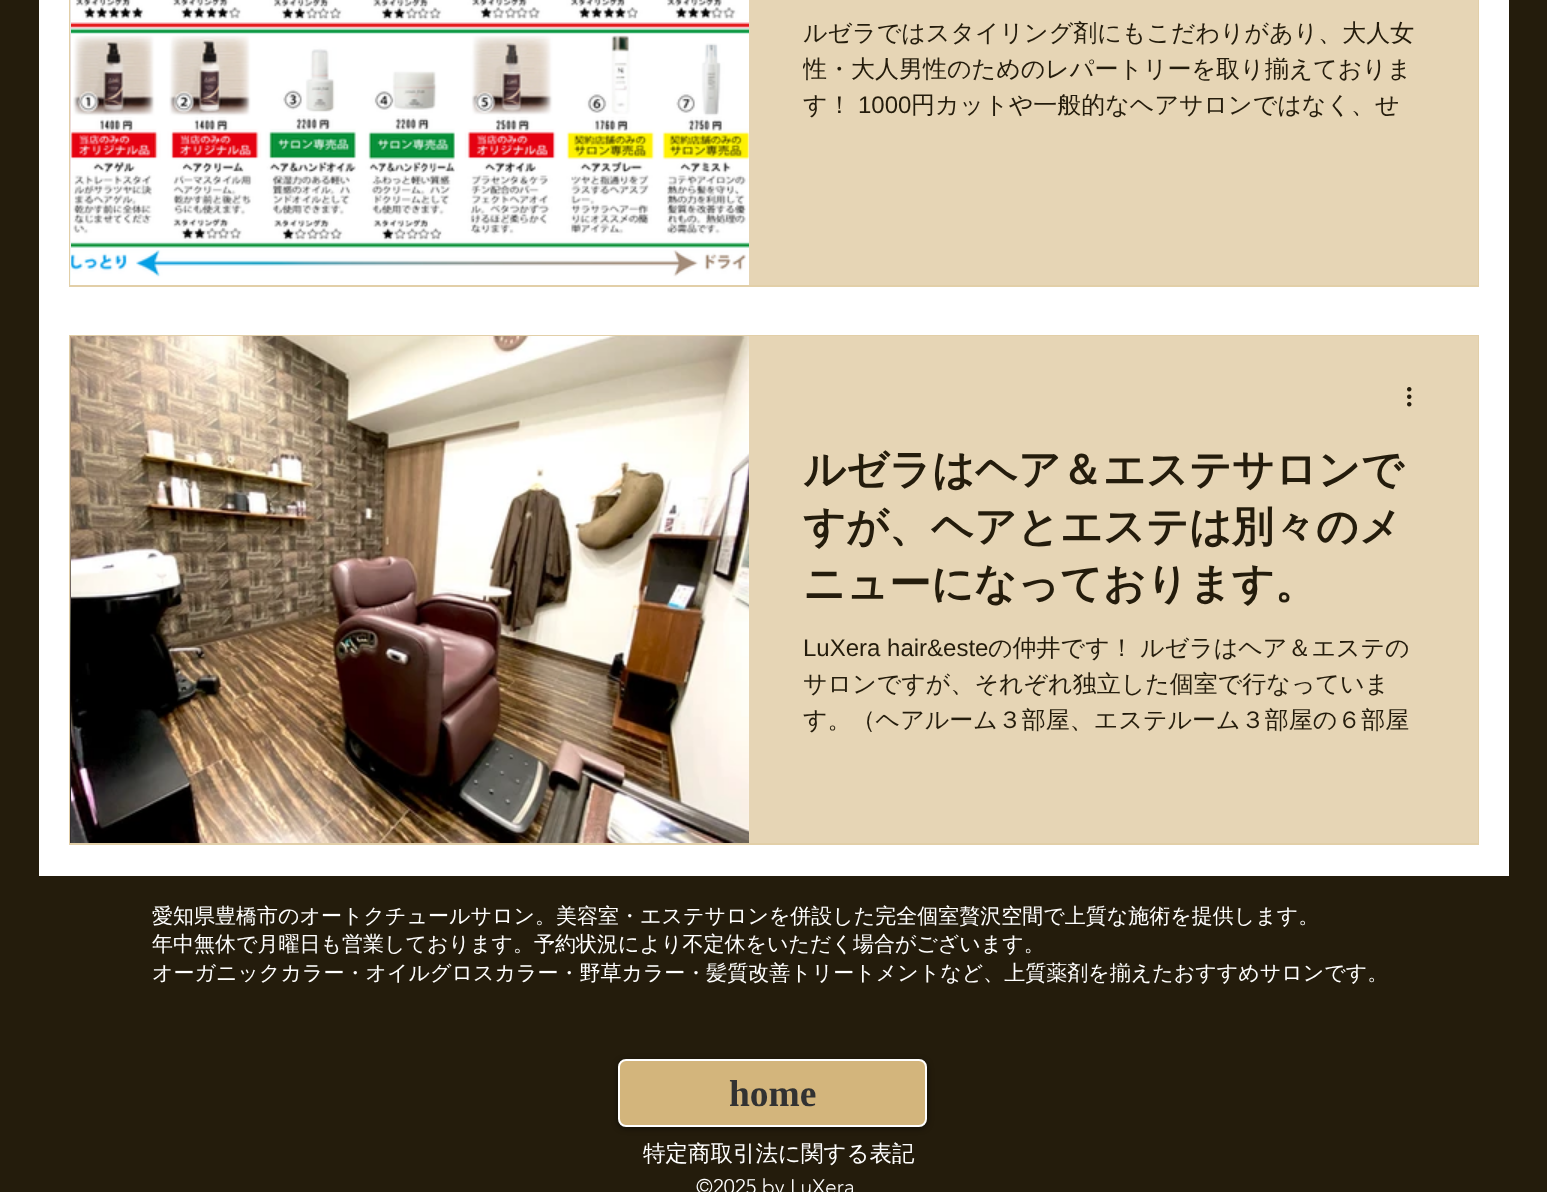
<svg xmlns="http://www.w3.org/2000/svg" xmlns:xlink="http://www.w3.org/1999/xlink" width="1547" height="1192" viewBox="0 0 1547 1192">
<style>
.cls-1{font:500 24px WenQuanYi Zen Hei;fill:#241c0c}
.cls-2{font:24px Liberation Sans;fill:#241c0c}
.cls-3{font:bold 42px WenQuanYi Zen Hei;fill:#241c0c}
.cls-4{font:500 21px WenQuanYi Zen Hei;fill:#ffffff}
.cls-5{font:bold 37.5px Liberation Serif;fill:#323232}
.cls-6{font:500 22.5px WenQuanYi Zen Hei;fill:#ffffff}
.cls-7{font:300 21px 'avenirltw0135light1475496';fill:#ffffff}
</style>
<defs>
<clipPath id="clip1"><rect x="803" y="15" width="621" height="108"/></clipPath>
</defs>
<rect width="100%" height="100%" fill="#241c0c"/>
<rect fill="#ffffff" x="39" y="0" width="1470" height="876"/>
<rect fill="none" stroke="#e2cfa8" stroke-width="2" x="70" y="-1" width="1408" height="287"/>
<image xlink:href="image0.png" x="70" y="0" width="1" height="285"/>
<image xlink:href="image1.png" x="71" y="0" width="678" height="285"/>
<rect fill="#e6d5b5" x="749" y="0" width="729" height="285"/>
<rect fill="none" stroke="#e2cfa8" stroke-width="2" x="70" y="336" width="1408" height="508"/>
<image xlink:href="image2.png" x="70" y="336" width="1" height="507"/>
<image xlink:href="image3.png" x="71" y="336" width="678" height="507"/>
<rect fill="#e6d5b5" x="749" y="336" width="729" height="507"/>
<image xlink:href="image4.png" x="1407" y="387" width="5" height="20"/>
<rect fill="#000000" fill-opacity="0.6" filter="blur(3px)" x="618" y="1061" width="309" height="67" rx="8"/>
<rect fill="#d3b57c" stroke="#ffffff" stroke-width="2" x="619" y="1060" width="307" height="66" rx="7"/>
<text class="cls-1" x="803" y="41">ルゼラではスタイリング剤にもこだわりがあり、大人女</text>
<g clip-path="url(#clip1)">
<text class="cls-1" x="803" y="77">性・大人男性のためのレパートリーを取り揃えておりま</text>
</g>
<text class="cls-1" x="803" y="113">す！</text>
<text class="cls-2" x="858" y="113">1000</text>
<text class="cls-1" x="911" y="113">円カットや一般的なヘアサロンではなく、せ</text>
<text class="cls-3"><tspan x="803" y="484">ルゼラはヘア＆エステサロンで</tspan><tspan x="803" y="541">すが、ヘアとエステは別々のメ</tspan><tspan x="803" y="598">ニューになっております。</tspan></text>
<text class="cls-2" x="803" y="656">LuXera hair&amp;este</text>
<text class="cls-1" x="988" y="656">の仲井です！</text>
<text class="cls-1" x="1140" y="656">ルゼラはヘア＆エステの</text>
<text class="cls-1"><tspan x="803" y="692">サロンですが、それぞれ独立した個室で行なっていま</tspan><tspan x="803" y="728">す。（ヘアルーム３部屋、エステルーム３部屋の６部屋</tspan></text>
<text class="cls-4"><tspan x="152" y="923">愛知県豊橋市のオートクチュールサロン。美容室・エステサロンを併設した完全個室贅沢空間で上質な施術を提供します。</tspan><tspan x="152" y="951">年中無休で月曜日も営業しております。予約状況により不定休をいただく場合がございます。</tspan><tspan x="152" y="980">オーガニックカラー・オイルグロスカラー・野草カラー・髪質改善トリートメントなど、上質薬剤を揃えたおすすめサロンです。</tspan></text>
<text class="cls-5" x="729" y="1106">home</text>
<text class="cls-6" x="643" y="1161">特定商取引法に関する表記</text>
<text class="cls-7" x="696" y="1194">©2025 by LuXera</text>
</svg>
